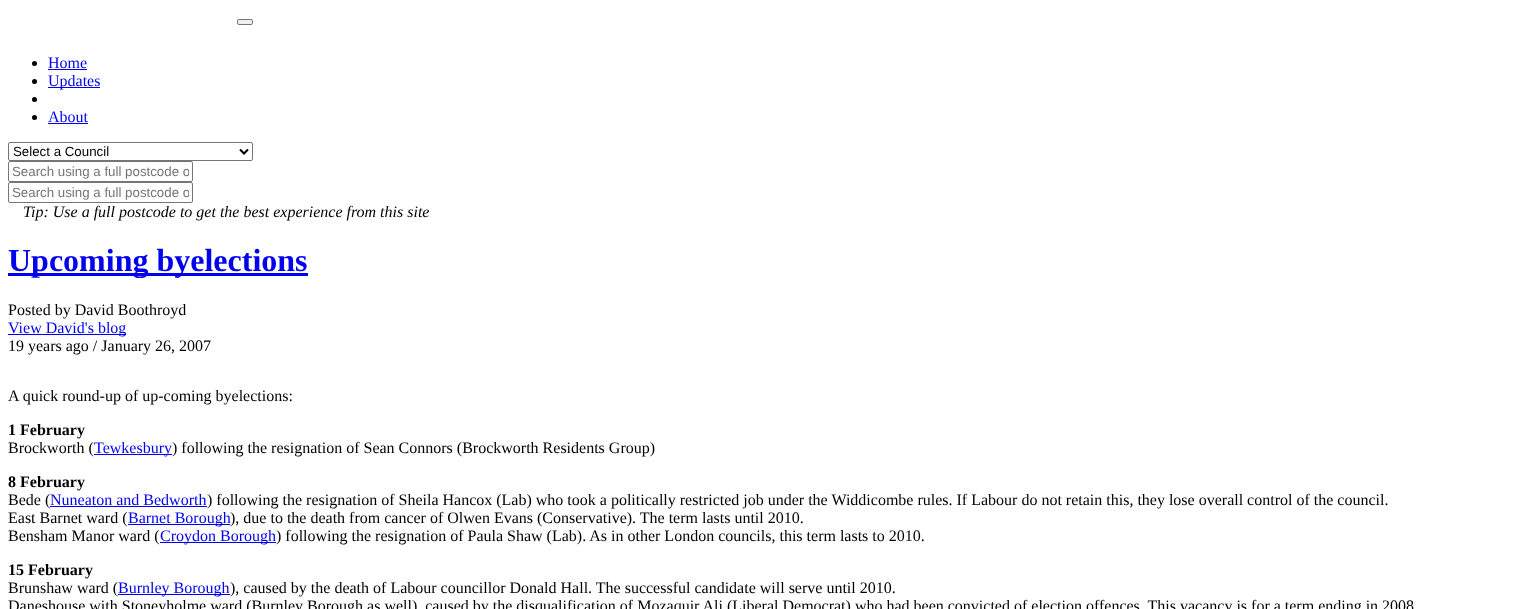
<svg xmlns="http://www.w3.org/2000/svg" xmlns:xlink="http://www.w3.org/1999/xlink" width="1538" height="609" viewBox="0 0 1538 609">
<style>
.cls-1{font:16px Liberation Serif;fill:#0000ee}
.cls-2{font:13.3px Liberation Sans;fill:#000000}
.cls-3{font:13.3px Liberation Sans;fill:#757575}
.cls-4{font:italic 16px Liberation Serif;fill:#000000}
.cls-5{font:bold 32px Liberation Serif;fill:#0000ee}
.cls-6{font:16px Liberation Serif;fill:#000000}
.cls-7{font:bold 16px Liberation Serif;fill:#000000}
</style>
<defs>
<clipPath id="clip1"><rect x="12" y="164" width="177" height="15"/></clipPath>
<clipPath id="clip2"><rect x="12" y="185" width="177" height="15"/></clipPath>
</defs>
<rect width="100%" height="100%" fill="#ffffff"/>
<rect fill="#efefef" stroke="#767676" x="237.5" y="19.5" width="15" height="5" rx="1.5"/>
<circle fill="#000000" cx="34.5" cy="63.5" r="2.5"/>
<rect fill="#0000ee" x="48" y="69" width="39" height="1"/>
<circle fill="#000000" cx="34.5" cy="81.5" r="2.5"/>
<rect fill="#0000ee" x="48" y="87" width="52" height="1"/>
<circle fill="#000000" cx="34.5" cy="99.5" r="2.5"/>
<circle fill="#000000" cx="34.5" cy="117.5" r="2.5"/>
<rect fill="#0000ee" x="48" y="123" width="40" height="1"/>
<rect fill="none" stroke="#767676" x="8.5" y="142.5" width="244" height="18" rx="1.5"/>
<path fill="none" stroke="#000000" stroke-width="2" d="M240 149.5L244 153.5L248 149.5"/>
<rect fill="none" stroke="#767676" x="8.5" y="161.5" width="184" height="20" rx="1.5"/>
<rect fill="none" stroke="#767676" x="8.5" y="182.5" width="184" height="20" rx="1.5"/>
<rect fill="#0000ee" x="8" y="273" width="300" height="3"/>
<rect fill="#0000ee" x="8" y="334" width="118" height="1"/>
<rect fill="#0000ee" x="94" y="454" width="78" height="1"/>
<rect fill="#0000ee" x="50" y="506" width="157" height="1"/>
<rect fill="#0000ee" x="128" y="524" width="102" height="1"/>
<rect fill="#0000ee" x="160" y="542" width="116" height="1"/>
<rect fill="#0000ee" x="118" y="594" width="112" height="1"/>
<text class="cls-1"><tspan x="48" y="68">Home</tspan><tspan x="48" y="86">Updates</tspan></text>
<text class="cls-1" x="48" y="122">About</text>
<text class="cls-2" x="13" y="156">Select a Council</text>
<g clip-path="url(#clip1)">
<text class="cls-3" x="12" y="176">Search using a full postcode o</text>
</g>
<g clip-path="url(#clip2)">
<text class="cls-3" x="12" y="197">Search using a full postcode o</text>
</g>
<text class="cls-4" x="23" y="217">Tip: Use a full postcode to get the best experience from this site</text>
<text class="cls-5" x="8" y="271">Upcoming byelections</text>
<text class="cls-6" x="8" y="315">Posted by David Boothroyd</text>
<text class="cls-1" x="8" y="333">View David's blog</text>
<text class="cls-6" x="8" y="351">19 years ago / January 26, 2007</text>
<text class="cls-6" x="8" y="401">A quick round-up of up-coming byelections:</text>
<text class="cls-7" x="8" y="435">1 February</text>
<text class="cls-6" x="8" y="453">Brockworth (</text>
<text class="cls-1" x="94" y="453">Tewkesbury</text>
<text class="cls-6" x="172" y="453">) following the resignation of Sean Connors (Brockworth Residents Group)</text>
<text class="cls-7" x="8" y="487">8 February</text>
<text class="cls-6" x="8" y="505">Bede (</text>
<text class="cls-1" x="50" y="505">Nuneaton and Bedworth</text>
<text class="cls-6" x="207" y="505">) following the resignation of Sheila Hancox (Lab) who took a politically restricted job under the Widdicombe rules. If Labour do not retain this, they lose overall control of the council.</text>
<text class="cls-6" x="8" y="523">East Barnet ward (</text>
<text class="cls-1" x="128" y="523">Barnet Borough</text>
<text class="cls-6" x="230" y="523">), due to the death from cancer of Olwen Evans (Conservative). The term lasts until 2010.</text>
<text class="cls-6" x="8" y="541">Bensham Manor ward (</text>
<text class="cls-1" x="160" y="541">Croydon Borough</text>
<text class="cls-6" x="276" y="541">) following the resignation of Paula Shaw (Lab). As in other London councils, this term lasts to 2010.</text>
<text class="cls-7" x="8" y="575">15 February</text>
<text class="cls-6" x="8" y="593">Brunshaw ward (</text>
<text class="cls-1" x="118" y="593">Burnley Borough</text>
<text class="cls-6" x="230" y="593">), caused by the death of Labour councillor Donald Hall. The successful candidate will serve until 2010.</text>
<text class="cls-6" x="8" y="611">Daneshouse with Stoneyholme ward (Burnley Borough as well), caused by the disqualification of Mozaquir Ali (Liberal Democrat) who had been convicted of election offences. This vacancy is for a term ending in 2008</text>
</svg>
